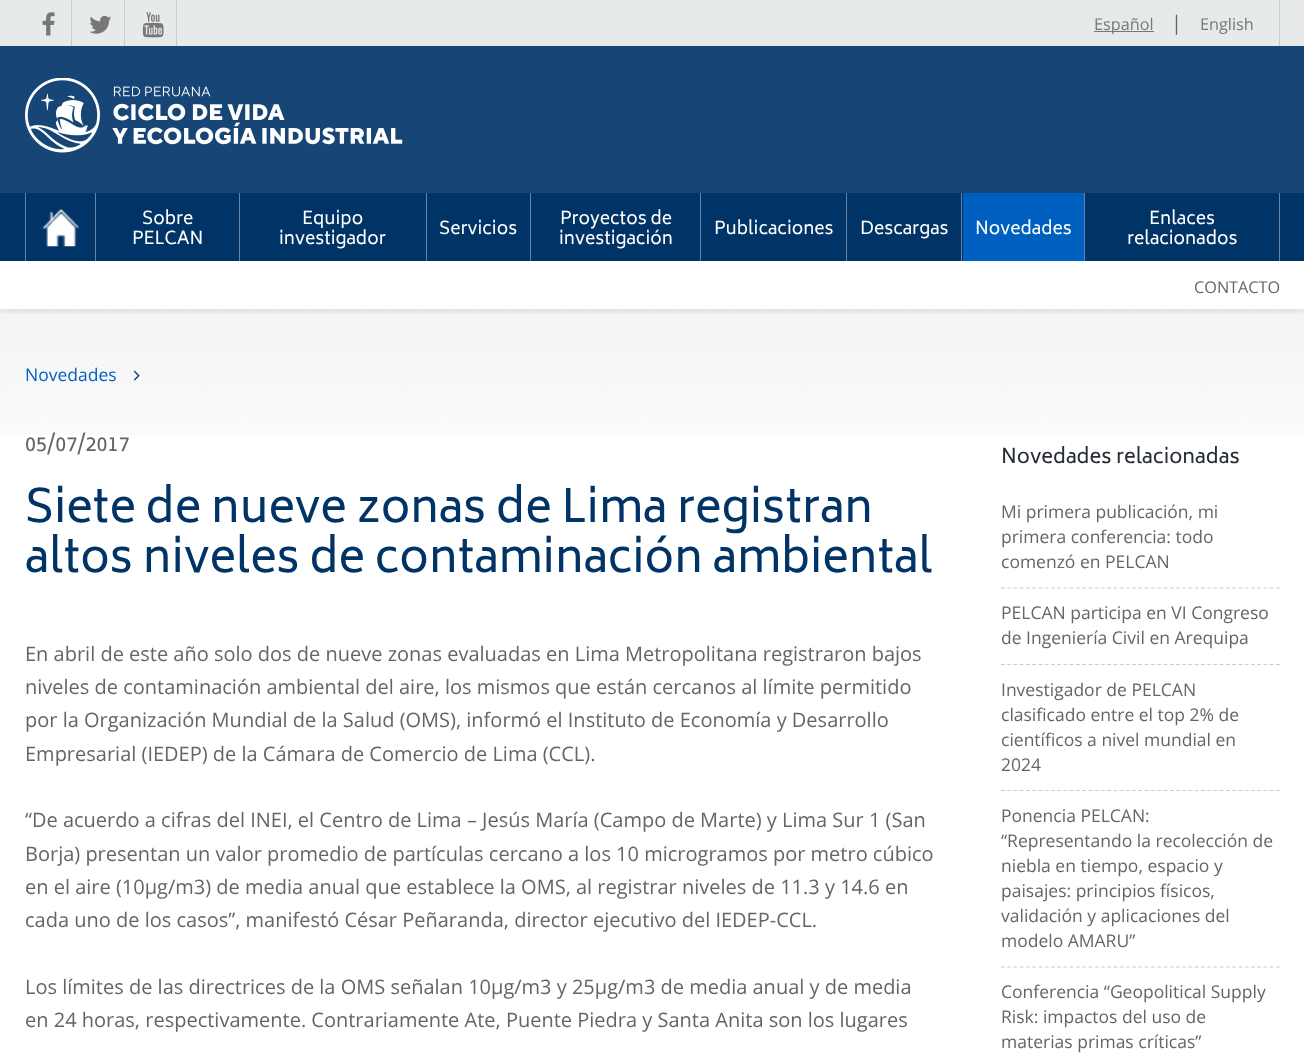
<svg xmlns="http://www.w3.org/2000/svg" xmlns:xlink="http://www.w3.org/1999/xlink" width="1304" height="1056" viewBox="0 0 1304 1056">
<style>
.cls-1{font:16.25px Open Sans;fill:#777777}
.cls-2{font:20px Open Sans;fill:#666565}
.cls-3{font:17.5px Biryani;fill:#ffffff}
.cls-4{font:16.25px Open Sans;fill:#666565}
.cls-5{font:17.5px Open Sans;fill:#0060bf}
.cls-6{font:20px Biryani;fill:#666565}
.cls-7{font:45px Biryani;fill:#003366}
.cls-8{font:20px Biryani;fill:#252c34}
.cls-9{font:17.5px Open Sans;fill:#666565}
</style>
<defs>
<clipPath id="clip1"><rect x="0" y="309" width="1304" height="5"/></clipPath>
</defs>
<rect width="100%" height="100%" fill="#ffffff"/>
<rect fill="#e7eaeb" x="0" y="0" width="1304" height="46"/>
<rect fill="#cccccc" x="71" y="0" width="1" height="46"/>
<image xlink:href="image0.png" x="42" y="12" width="13" height="24"/>
<rect fill="#cccccc" x="124" y="0" width="1" height="46"/>
<image xlink:href="image1.png" x="89" y="15" width="23" height="19"/>
<rect fill="#cccccc" x="176" y="0" width="1" height="46"/>
<image xlink:href="image2.png" x="142" y="12" width="22" height="26"/>
<rect fill="#cccccc" x="1279" y="0" width="1" height="46"/>
<rect fill="#777777" x="1094" y="31" width="60" height="1"/>
<rect fill="#164576" x="0" y="46" width="1304" height="147"/>
<image xlink:href="image3.png" x="25" y="78" width="378" height="75"/>
<image xlink:href="image5.png" x="0" y="309" width="1304" height="126"/>
<g clip-path="url(#clip1)">
<rect fill="#000000" fill-opacity="0.1" filter="blur(4px)" x="0" y="264" width="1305" height="47"/>
</g>
<rect fill="#003366" x="0" y="193" width="1304" height="68"/>
<rect fill="#6785a3" x="25" y="193" width="1" height="68"/>
<image xlink:href="image4.png" x="42" y="208" width="37" height="39"/>
<rect fill="#6785a3" x="95" y="193" width="1" height="68"/>
<rect fill="#6785a3" x="239" y="193" width="1" height="68"/>
<rect fill="#6785a3" x="426" y="193" width="1" height="68"/>
<rect fill="#6785a3" x="530" y="193" width="1" height="68"/>
<rect fill="#6785a3" x="700" y="193" width="1" height="68"/>
<rect fill="#6785a3" x="846" y="193" width="1" height="68"/>
<rect fill="#6785a3" x="961" y="193" width="1" height="68"/>
<rect fill="#0060bf" x="963" y="193" width="121" height="68"/>
<rect fill="#6785a3" x="1084" y="193" width="1" height="68"/>
<rect fill="#6785a3" x="1279" y="193" width="1" height="68"/>
<image xlink:href="image6.png" x="133" y="370" width="7" height="11"/>
<path fill="none" stroke="#cccccc" stroke-width="1.2" stroke-dasharray="3.75 2.5" d="M1001 588H1280"/>
<path fill="none" stroke="#cccccc" stroke-width="1.2" stroke-dasharray="3.75 2.5" d="M1001 664.5H1280"/>
<path fill="none" stroke="#cccccc" stroke-width="1.2" stroke-dasharray="3.75 2.5" d="M1001 790.5H1280"/>
<path fill="none" stroke="#cccccc" stroke-width="1.2" stroke-dasharray="3.75 2.5" d="M1001 967H1280"/>
<text class="cls-1" x="1094" y="30">Español</text>
<text class="cls-2" x="1171" y="30">|</text>
<text class="cls-1" x="1200" y="30">English</text>
<text class="cls-3" x="142" y="224">Sobre</text>
<text class="cls-3" x="132" y="244">PELCAN</text>
<text class="cls-3" x="302" y="224">Equipo</text>
<text class="cls-3" x="279" y="244">investigador</text>
<text class="cls-3" x="439" y="234">Servicios</text>
<text class="cls-3" x="560" y="224">Proyectos de</text>
<text class="cls-3" x="559" y="244">investigación</text>
<text class="cls-3" x="714" y="234">Publicaciones</text>
<text class="cls-3" x="860" y="234">Descargas</text>
<text class="cls-3" x="975" y="234">Novedades</text>
<text class="cls-3" x="1149" y="224">Enlaces</text>
<text class="cls-3" x="1127" y="244">relacionados</text>
<text class="cls-4" x="1194" y="293">CONTACTO</text>
<text class="cls-5" x="25" y="381">Novedades</text>
<text class="cls-6" x="25" y="451">05/07/2017</text>
<text class="cls-7"><tspan x="25" y="522">Siete de nueve zonas de Lima registran</tspan><tspan x="25" y="572">altos niveles de contaminación ambiental</tspan></text>
<text class="cls-2"><tspan x="25" y="661">En abril de este año solo dos de nueve zonas evaluadas en Lima Metropolitana registraron bajos</tspan><tspan x="25" y="694">niveles de contaminación ambiental del aire, los mismos que están cercanos al límite permitido</tspan><tspan x="25" y="727">por la Organización Mundial de la Salud (OMS), informó el Instituto de Economía y Desarrollo</tspan><tspan x="25" y="761">Empresarial (IEDEP) de la Cámara de Comercio de Lima (CCL).</tspan></text>
<text class="cls-2"><tspan x="25" y="827">“De acuerdo a cifras del INEI, el Centro de Lima – Jesús María (Campo de Marte) y Lima Sur 1 (San</tspan><tspan x="25" y="861">Borja) presentan un valor promedio de partículas cercano a los 10 microgramos por metro cúbico</tspan><tspan x="25" y="894">en el aire (10µg/m3) de media anual que establece la OMS, al registrar niveles de 11.3 y 14.6 en</tspan><tspan x="25" y="927">cada uno de los casos”, manifestó César Peñaranda, director ejecutivo del IEDEP-CCL.</tspan></text>
<text class="cls-2"><tspan x="25" y="994">Los límites de las directrices de la OMS señalan 10µg/m3 y 25µg/m3 de media anual y de media</tspan><tspan x="25" y="1027">en 24 horas, respectivamente. Contrariamente Ate, Puente Piedra y Santa Anita son los lugares</tspan></text>
<text class="cls-8" x="1001" y="463">Novedades relacionadas</text>
<text class="cls-9"><tspan x="1001" y="518">Mi primera publicación, mi</tspan><tspan x="1001" y="543">primera conferencia: todo</tspan><tspan x="1001" y="568">comenzó en PELCAN</tspan></text>
<text class="cls-9"><tspan x="1001" y="619">PELCAN participa en VI Congreso</tspan><tspan x="1001" y="644">de Ingeniería Civil en Arequipa</tspan></text>
<text class="cls-9"><tspan x="1001" y="696">Investigador de PELCAN</tspan><tspan x="1001" y="721">clasificado entre el top 2% de</tspan><tspan x="1001" y="746">científicos a nivel mundial en</tspan><tspan x="1001" y="771">2024</tspan></text>
<text class="cls-9"><tspan x="1001" y="822">Ponencia PELCAN:</tspan><tspan x="1001" y="847">“Representando la recolección de</tspan><tspan x="1001" y="872">niebla en tiempo, espacio y</tspan><tspan x="1001" y="897">paisajes: principios físicos,</tspan><tspan x="1001" y="922">validación y aplicaciones del</tspan><tspan x="1001" y="947">modelo AMARU”</tspan></text>
<text class="cls-9"><tspan x="1001" y="998">Conferencia “Geopolitical Supply</tspan><tspan x="1001" y="1023">Risk: impactos del uso de</tspan><tspan x="1001" y="1048">materias primas críticas”</tspan></text>
</svg>
